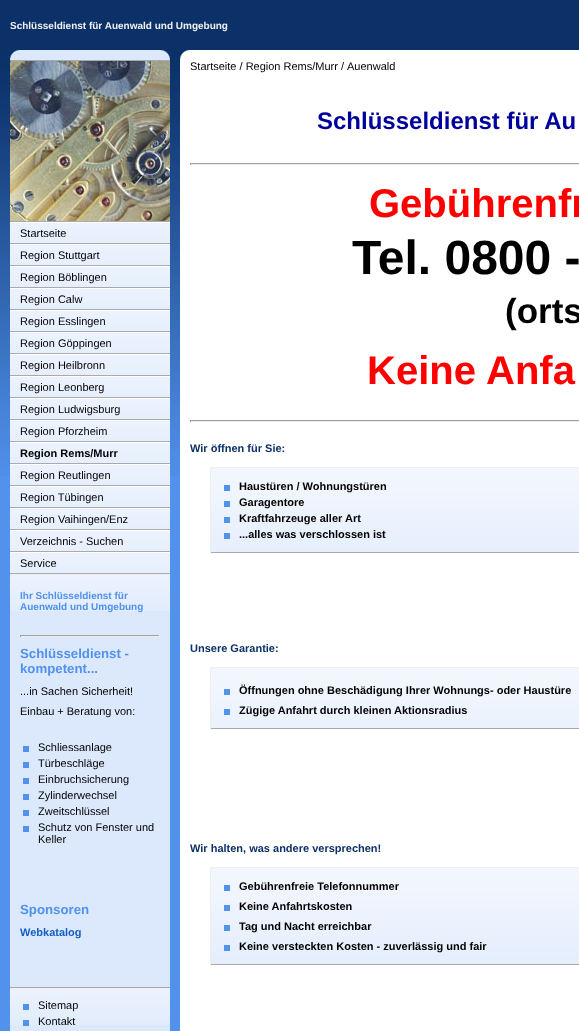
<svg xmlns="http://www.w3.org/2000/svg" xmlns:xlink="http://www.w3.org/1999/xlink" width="579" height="1031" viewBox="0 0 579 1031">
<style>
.cls-1{font:bold 10px Liberation Sans;fill:#efefef}
.cls-2{font:11px Liberation Sans;fill:#000000}
.cls-3{font:bold 11px Liberation Sans;fill:#000000}
.cls-4{font:bold 10px Liberation Sans;fill:#5292ed}
.cls-5{font:bold 13.25px Liberation Sans;fill:#5292ed}
.cls-6{font:bold 11px Liberation Sans;fill:#155dc4}
.cls-7{font:bold 24px Liberation Sans;fill:#00009d}
.cls-8{font:bold 40px Liberation Sans;fill:#ff0000}
.cls-9{font:bold 48px Liberation Sans;fill:#000000}
.cls-10{font:bold 35px Liberation Sans;fill:#000000}
.cls-11{font:bold 11px Liberation Sans;fill:#0b3168}
</style>
<rect width="100%" height="100%" fill="#5292ed"/>
<image xlink:href="image0.png" x="0" y="0" width="579" height="476"/>
<image xlink:href="image1.png" x="10" y="50" width="160" height="10"/>
<rect fill="#aaaaaa" x="10" y="60" width="160" height="1"/>
<image xlink:href="image2.png" x="10" y="61" width="160" height="160"/>
<rect fill="#aaaaaa" x="10" y="221" width="160" height="1"/>
<image xlink:href="image3.png" x="10" y="223" width="160" height="20"/>
<rect fill="#ffffff" x="10" y="222" width="160" height="1"/>
<rect fill="#aaaaaa" x="10" y="243" width="160" height="1"/>
<image xlink:href="image3.png" x="10" y="245" width="160" height="20"/>
<rect fill="#ffffff" x="10" y="244" width="160" height="1"/>
<rect fill="#aaaaaa" x="10" y="265" width="160" height="1"/>
<image xlink:href="image3.png" x="10" y="267" width="160" height="20"/>
<rect fill="#ffffff" x="10" y="266" width="160" height="1"/>
<rect fill="#aaaaaa" x="10" y="287" width="160" height="1"/>
<image xlink:href="image3.png" x="10" y="289" width="160" height="20"/>
<rect fill="#ffffff" x="10" y="288" width="160" height="1"/>
<rect fill="#aaaaaa" x="10" y="309" width="160" height="1"/>
<image xlink:href="image3.png" x="10" y="311" width="160" height="20"/>
<rect fill="#ffffff" x="10" y="310" width="160" height="1"/>
<rect fill="#aaaaaa" x="10" y="331" width="160" height="1"/>
<image xlink:href="image3.png" x="10" y="333" width="160" height="20"/>
<rect fill="#ffffff" x="10" y="332" width="160" height="1"/>
<rect fill="#aaaaaa" x="10" y="353" width="160" height="1"/>
<image xlink:href="image3.png" x="10" y="355" width="160" height="20"/>
<rect fill="#ffffff" x="10" y="354" width="160" height="1"/>
<rect fill="#aaaaaa" x="10" y="375" width="160" height="1"/>
<image xlink:href="image3.png" x="10" y="377" width="160" height="20"/>
<rect fill="#ffffff" x="10" y="376" width="160" height="1"/>
<rect fill="#aaaaaa" x="10" y="397" width="160" height="1"/>
<image xlink:href="image3.png" x="10" y="399" width="160" height="20"/>
<rect fill="#ffffff" x="10" y="398" width="160" height="1"/>
<rect fill="#aaaaaa" x="10" y="419" width="160" height="1"/>
<image xlink:href="image3.png" x="10" y="421" width="160" height="20"/>
<rect fill="#ffffff" x="10" y="420" width="160" height="1"/>
<rect fill="#aaaaaa" x="10" y="441" width="160" height="1"/>
<image xlink:href="image3.png" x="10" y="443" width="160" height="20"/>
<rect fill="#ffffff" x="10" y="442" width="160" height="1"/>
<rect fill="#aaaaaa" x="10" y="463" width="160" height="1"/>
<image xlink:href="image3.png" x="10" y="465" width="160" height="20"/>
<rect fill="#ffffff" x="10" y="464" width="160" height="1"/>
<rect fill="#aaaaaa" x="10" y="485" width="160" height="1"/>
<image xlink:href="image3.png" x="10" y="487" width="160" height="20"/>
<rect fill="#ffffff" x="10" y="486" width="160" height="1"/>
<rect fill="#aaaaaa" x="10" y="507" width="160" height="1"/>
<image xlink:href="image3.png" x="10" y="509" width="160" height="20"/>
<rect fill="#ffffff" x="10" y="508" width="160" height="1"/>
<rect fill="#aaaaaa" x="10" y="529" width="160" height="1"/>
<image xlink:href="image3.png" x="10" y="531" width="160" height="20"/>
<rect fill="#ffffff" x="10" y="530" width="160" height="1"/>
<rect fill="#aaaaaa" x="10" y="551" width="160" height="1"/>
<image xlink:href="image3.png" x="10" y="553" width="160" height="20"/>
<rect fill="#ffffff" x="10" y="552" width="160" height="1"/>
<rect fill="#aaaaaa" x="10" y="573" width="160" height="1"/>
<rect fill="#dce9fc" x="10" y="611" width="160" height="376"/>
<image xlink:href="image4.png" x="10" y="575" width="160" height="36"/>
<rect fill="#eeeeee" x="10" y="574" width="160" height="1"/>
<rect fill="#aaaaaa" x="10" y="987" width="160" height="1"/>
<rect fill="#9f9f9f" x="20" y="635" width="140" height="1"/>
<rect fill="#eeeeee" x="159" y="635" width="1" height="2"/>
<rect fill="#eeeeee" x="20" y="636" width="140" height="1"/>
<rect fill="#9f9f9f" x="20" y="635" width="1" height="2"/>
<rect fill="#5292ed" x="23" y="746" width="6" height="6"/>
<rect fill="#5292ed" x="23" y="762" width="6" height="6"/>
<rect fill="#5292ed" x="23" y="778" width="6" height="6"/>
<rect fill="#5292ed" x="23" y="794" width="6" height="6"/>
<rect fill="#5292ed" x="23" y="810" width="6" height="6"/>
<rect fill="#5292ed" x="23" y="826" width="6" height="6"/>
<rect fill="#dce9fc" x="10" y="1025" width="160" height="6"/>
<image xlink:href="image4.png" x="10" y="989" width="160" height="36"/>
<rect fill="#eeeeee" x="10" y="988" width="160" height="1"/>
<rect fill="#5292ed" x="23" y="1004" width="6" height="6"/>
<rect fill="#5292ed" x="23" y="1020" width="6" height="6"/>
<image xlink:href="image5.png" x="180" y="50" width="399" height="10"/>
<rect fill="#ffffff" x="180" y="60" width="399" height="971"/>
<rect fill="#9f9f9f" x="190" y="163" width="389" height="1"/>
<rect fill="#eeeeee" x="190" y="164" width="389" height="1"/>
<rect fill="#9f9f9f" x="190" y="163" width="1" height="2"/>
<rect fill="#9f9f9f" x="190" y="420" width="389" height="1"/>
<rect fill="#eeeeee" x="190" y="421" width="389" height="1"/>
<rect fill="#9f9f9f" x="190" y="420" width="1" height="2"/>
<image xlink:href="image6.png" x="211" y="468" width="368" height="84"/>
<rect fill="#eeeeee" x="210" y="467" width="369" height="1"/>
<rect fill="#aaaaaa" x="210" y="552" width="369" height="1"/>
<rect fill="#eeeeee" x="210" y="467" width="1" height="86"/>
<rect fill="#5292ed" x="224" y="485" width="6" height="6"/>
<rect fill="#5292ed" x="224" y="501" width="6" height="6"/>
<rect fill="#5292ed" x="224" y="517" width="6" height="6"/>
<rect fill="#5292ed" x="224" y="533" width="6" height="6"/>
<image xlink:href="image7.png" x="211" y="668" width="368" height="60"/>
<rect fill="#eeeeee" x="210" y="667" width="369" height="1"/>
<rect fill="#aaaaaa" x="210" y="728" width="369" height="1"/>
<rect fill="#eeeeee" x="210" y="667" width="1" height="62"/>
<rect fill="#5292ed" x="224" y="689" width="6" height="6"/>
<rect fill="#5292ed" x="224" y="709" width="6" height="6"/>
<image xlink:href="image8.png" x="211" y="868" width="368" height="96"/>
<rect fill="#eeeeee" x="210" y="867" width="369" height="1"/>
<rect fill="#aaaaaa" x="210" y="964" width="369" height="1"/>
<rect fill="#eeeeee" x="210" y="867" width="1" height="98"/>
<rect fill="#5292ed" x="224" y="885" width="6" height="6"/>
<rect fill="#5292ed" x="224" y="905" width="6" height="6"/>
<rect fill="#5292ed" x="224" y="925" width="6" height="6"/>
<rect fill="#5292ed" x="224" y="945" width="6" height="6"/>
<text class="cls-1" x="10" y="29">Schlüsseldienst für Auenwald und Umgebung</text>
<text class="cls-2" x="20" y="237">Startseite</text>
<text class="cls-2" x="20" y="259">Region Stuttgart</text>
<text class="cls-2" x="20" y="281">Region Böblingen</text>
<text class="cls-2" x="20" y="303">Region Calw</text>
<text class="cls-2" x="20" y="325">Region Esslingen</text>
<text class="cls-2" x="20" y="347">Region Göppingen</text>
<text class="cls-2" x="20" y="369">Region Heilbronn</text>
<text class="cls-2" x="20" y="391">Region Leonberg</text>
<text class="cls-2" x="20" y="413">Region Ludwigsburg</text>
<text class="cls-2" x="20" y="435">Region Pforzheim</text>
<text class="cls-3" x="20" y="457">Region Rems/Murr</text>
<text class="cls-2" x="20" y="479">Region Reutlingen</text>
<text class="cls-2" x="20" y="501">Region Tübingen</text>
<text class="cls-2" x="20" y="523">Region Vaihingen/Enz</text>
<text class="cls-2" x="20" y="545">Verzeichnis - Suchen</text>
<text class="cls-2" x="20" y="567">Service</text>
<text class="cls-4"><tspan x="20" y="599">Ihr Schlüsseldienst für</tspan><tspan x="20" y="610">Auenwald und Umgebung</tspan></text>
<text class="cls-5"><tspan x="20" y="658">Schlüsseldienst -</tspan><tspan x="20" y="673">kompetent...</tspan></text>
<text class="cls-2"><tspan x="20" y="695">...in Sachen Sicherheit!</tspan><tspan x="20" y="715">Einbau + Beratung von:</tspan></text>
<text class="cls-2"><tspan x="38" y="751">Schliessanlage</tspan><tspan x="38" y="767">Türbeschläge</tspan><tspan x="38" y="783">Einbruchsicherung</tspan><tspan x="38" y="799">Zylinderwechsel</tspan><tspan x="38" y="815">Zweitschlüssel</tspan><tspan x="38" y="831">Schutz von Fenster und</tspan><tspan x="38" y="843">Keller</tspan></text>
<text class="cls-5" x="20" y="914">Sponsoren</text>
<text class="cls-6" x="20" y="936">Webkatalog</text>
<text class="cls-2"><tspan x="38" y="1009">Sitemap</tspan><tspan x="38" y="1025">Kontakt</tspan></text>
<text class="cls-2" x="190" y="70">Startseite / Region Rems/Murr /</text>
<text class="cls-2" x="347" y="70">Auenwald</text>
<text class="cls-7" x="317" y="129">Schlüsseldienst für Au</text>
<text class="cls-8" x="369" y="217">Gebührenfr</text>
<text class="cls-9" x="352" y="274">Tel. 0800 -</text>
<text class="cls-10" x="505" y="323">(orts</text>
<text class="cls-8" x="367" y="384">Keine</text>
<text class="cls-8" x="486" y="384">Anfa</text>
<text class="cls-11" x="190" y="452">Wir öffnen für Sie:</text>
<text class="cls-3"><tspan x="239" y="490">Haustüren / Wohnungstüren</tspan><tspan x="239" y="506">Garagentore</tspan><tspan x="239" y="522">Kraftfahrzeuge aller Art</tspan><tspan x="239" y="538">...alles was verschlossen ist</tspan></text>
<text class="cls-11" x="190" y="652">Unsere Garantie:</text>
<text class="cls-3"><tspan x="239" y="694">Öffnungen ohne Beschädigung Ihrer Wohnungs- oder Haustüre</tspan><tspan x="239" y="714">Zügige Anfahrt durch kleinen Aktionsradius</tspan></text>
<text class="cls-11" x="190" y="852">Wir halten, was andere versprechen!</text>
<text class="cls-3"><tspan x="239" y="890">Gebührenfreie Telefonnummer</tspan><tspan x="239" y="910">Keine Anfahrtskosten</tspan><tspan x="239" y="930">Tag und Nacht erreichbar</tspan><tspan x="239" y="950">Keine versteckten Kosten - zuverlässig und fair</tspan></text>
</svg>
